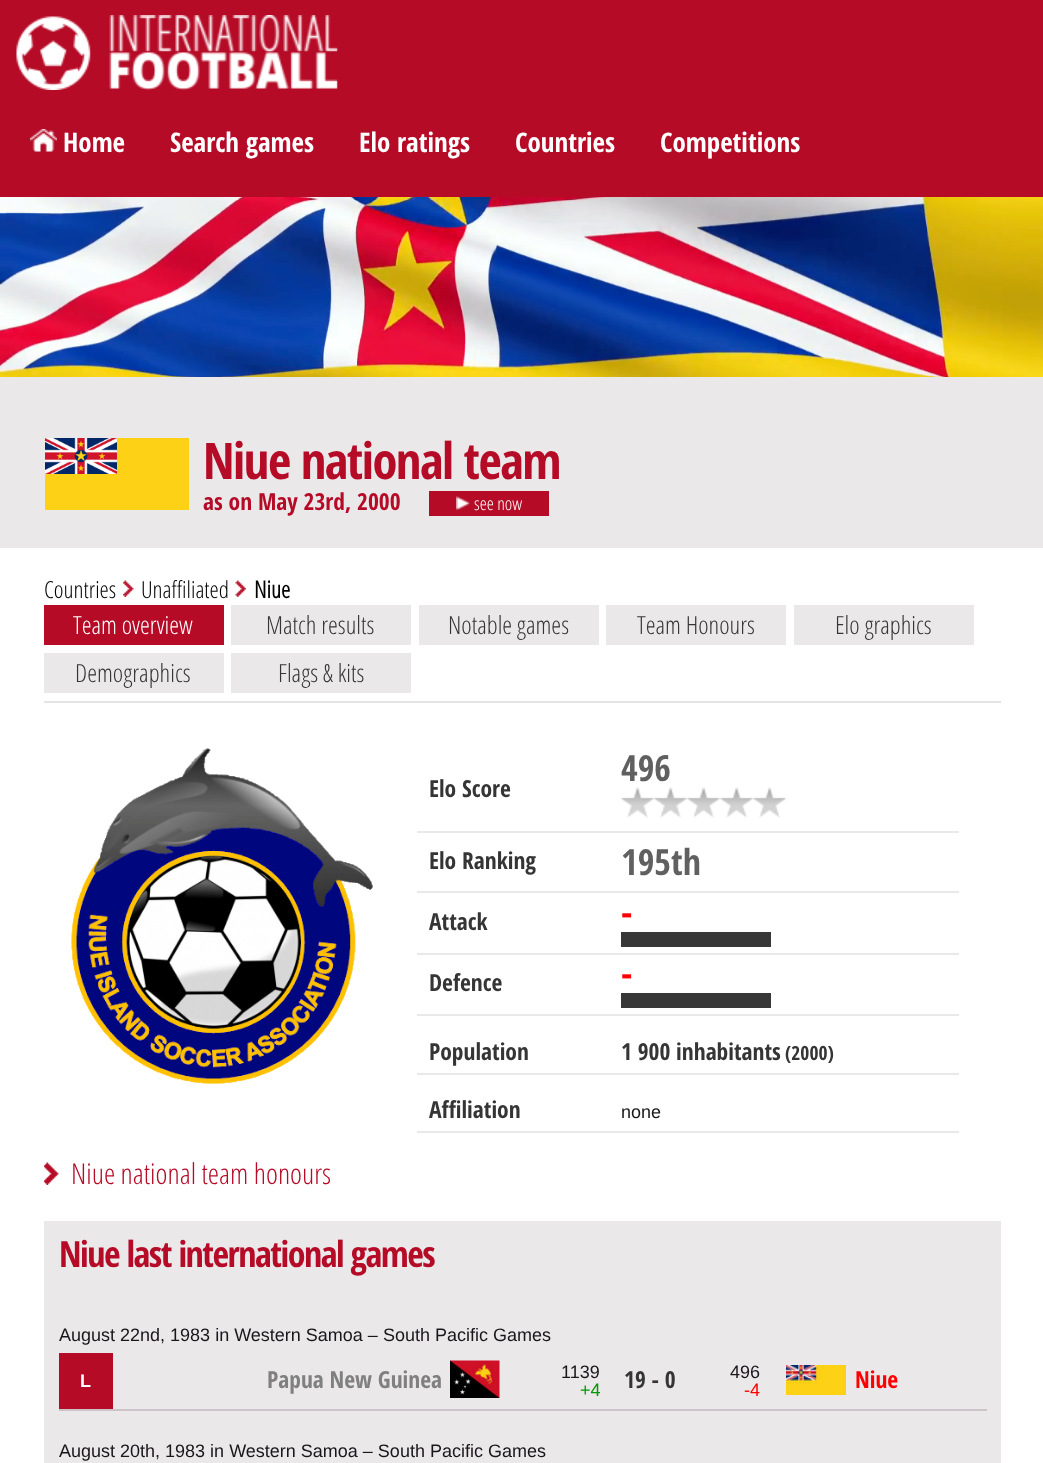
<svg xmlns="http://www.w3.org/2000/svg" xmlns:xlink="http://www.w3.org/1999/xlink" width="1043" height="1463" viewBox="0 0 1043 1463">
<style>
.cls-1{font:bold 27px Open Sans Condensed;fill:#ffffff}
.cls-2{font:bold 50.5px Open Sans Condensed;letter-spacing:-1.5px;fill:#b50b27}
.cls-3{font:bold 23.5px Open Sans Condensed;fill:#b50b27}
.cls-4{font:300 18px Open Sans;fill:#ffffff}
.cls-5{font:300 23.5px Open Sans;fill:#000000}
.cls-6{font:bold 23.5px Open Sans;fill:#000000}
.cls-7{font:300 25px Open Sans;fill:#ffffff}
.cls-8{font:300 25px Open Sans;fill:#353535}
.cls-9{font:bold 36px Open Sans Condensed;fill:#606060}
.cls-10{font:bold 23.5px Open Sans Condensed;fill:#353535}
.cls-11{font:bold 36px Open Sans Condensed;fill:#ff0000}
.cls-12{font:bold 19.5px Open Sans Condensed;fill:#353535}
.cls-13{font:18px Liberation Sans;fill:#1a171b}
.cls-14{font:300 28.75px Open Sans;fill:#b50b27}
.cls-15{font:bold 36px Open Sans Condensed;letter-spacing:-1.5px;fill:#b50b27}
.cls-16{font:bold 18px Liberation Sans;fill:#ffffff}
.cls-17{font:bold 23.5px Open Sans Condensed;fill:#808080}
.cls-18{font:18px Liberation Sans;fill:#009900}
.cls-19{font:18px Liberation Sans;fill:#ff0000}
.cls-20{font:bold 23.5px Open Sans Condensed;fill:#ff0000}
</style>
<rect width="100%" height="100%" fill="#ffffff"/>
<rect fill="#b50b27" x="0" y="0" width="1043" height="197"/>
<image xlink:href="image0.png" x="16" y="15" width="322" height="75"/>
<image xlink:href="image1.png" x="30" y="129" width="27" height="23"/>
<rect fill="#ebe8ea" x="0" y="377" width="1043" height="171"/>
<image xlink:href="image2.png" x="45" y="438" width="144" height="72"/>
<rect fill="#b50b27" x="429" y="491" width="120" height="25"/>
<image xlink:href="image3.png" x="456" y="496" width="14" height="14"/>
<image xlink:href="image4.png" x="123" y="580" width="11" height="17"/>
<image xlink:href="image5.png" x="235" y="580" width="11" height="17"/>
<rect fill="#b50b27" x="44" y="605" width="180" height="40"/>
<rect fill="#ebe8ea" x="231" y="605" width="180" height="40"/>
<rect fill="#ebe8ea" x="419" y="605" width="180" height="40"/>
<rect fill="#ebe8ea" x="606" y="605" width="180" height="40"/>
<rect fill="#ebe8ea" x="794" y="605" width="180" height="40"/>
<rect fill="#ebe8ea" x="44" y="653" width="180" height="40"/>
<rect fill="#ebe8ea" x="231" y="653" width="180" height="40"/>
<rect fill="#e4e4e4" x="44" y="701" width="957" height="2"/>
<image xlink:href="image6.png" x="71" y="748" width="302" height="336"/>
<rect fill="#ebe8ea" x="417" y="831" width="542" height="2"/>
<image xlink:href="image7.png" x="621" y="787" width="33" height="31"/>
<image xlink:href="image7.png" x="654" y="787" width="33" height="31"/>
<image xlink:href="image7.png" x="687" y="787" width="33" height="31"/>
<image xlink:href="image8.png" x="720" y="787" width="33" height="31"/>
<image xlink:href="image9.png" x="753" y="787" width="33" height="31"/>
<rect fill="#ebe8ea" x="417" y="891" width="542" height="2"/>
<rect fill="#ebe8ea" x="417" y="953" width="542" height="2"/>
<rect fill="#373738" x="621" y="932" width="150" height="15"/>
<rect fill="#ebe8ea" x="417" y="1014" width="542" height="2"/>
<rect fill="#373738" x="621" y="993" width="150" height="15"/>
<rect fill="#ebe8ea" x="417" y="1073" width="542" height="2"/>
<rect fill="#ebe8ea" x="417" y="1131" width="542" height="2"/>
<image xlink:href="image10.png" x="44" y="1162" width="15" height="23"/>
<rect fill="#ebe8ea" x="44" y="1221" width="957" height="242"/>
<rect fill="#b50b27" x="59" y="1353" width="54" height="56"/>
<image xlink:href="image11.png" x="450" y="1360" width="50" height="38"/>
<rect fill="#ccc4c9" x="59" y="1409" width="928" height="2"/>
<image xlink:href="image12.png" x="786" y="1365" width="60" height="30"/>
<image xlink:href="image13.png" x="0" y="197" width="1043" height="180"/>
<text class="cls-1" x="63" y="152">Home</text>
<text class="cls-1" x="170" y="152">Search games</text>
<text class="cls-1" x="359" y="152">Elo ratings</text>
<text class="cls-1" x="515" y="152">Countries</text>
<text class="cls-1" x="660" y="152">Competitions</text>
<text class="cls-2" x="203" y="479">Niue national team</text>
<text class="cls-3" x="203" y="510">as on May 23rd, 2000</text>
<text class="cls-4" x="474" y="510">see now</text>
<text class="cls-5" x="44" y="598">Countries</text>
<text class="cls-5" x="141" y="598">Unaffiliated</text>
<text class="cls-6" x="254" y="598">Niue</text>
<text class="cls-7" x="73" y="634">Team overview</text>
<text class="cls-8" x="266" y="634">Match results</text>
<text class="cls-8" x="448" y="634">Notable games</text>
<text class="cls-8" x="637" y="634">Team Honours</text>
<text class="cls-8" x="835" y="634">Elo graphics</text>
<text class="cls-8" x="75" y="682">Demographics</text>
<text class="cls-8" x="278" y="682">Flags &amp; kits</text>
<text class="cls-9" x="621" y="781">496</text>
<text class="cls-10" x="429" y="797">Elo Score</text>
<text class="cls-10" x="429" y="869">Elo Ranking</text>
<text class="cls-9" x="621" y="875">195th</text>
<text class="cls-10" x="429" y="930">Attack</text>
<text class="cls-11" x="621" y="925">-</text>
<text class="cls-10" x="429" y="991">Defence</text>
<text class="cls-11" x="621" y="986">-</text>
<text class="cls-10" x="429" y="1060">Population</text>
<text class="cls-10" x="621" y="1060">1 900 inhabitants</text>
<text class="cls-12" x="785" y="1060">(2000)</text>
<text class="cls-10" x="429" y="1118">Affiliation</text>
<text class="cls-13" x="621" y="1118">none</text>
<text class="cls-14" x="71" y="1184">Niue national team honours</text>
<text class="cls-15" x="59" y="1267">Niue last international games</text>
<text class="cls-13" x="59" y="1341">August 22nd, 1983 in Western Samoa – South Pacific Games</text>
<text class="cls-16" x="80" y="1387">L</text>
<text class="cls-17" x="267" y="1388">Papua New Guinea</text>
<text class="cls-13" x="561" y="1378">1139</text>
<text class="cls-18" x="580" y="1396">+4</text>
<text class="cls-10" x="624" y="1388">19 - 0</text>
<text class="cls-13" x="730" y="1378">496</text>
<text class="cls-19" x="744" y="1396">-4</text>
<text class="cls-20" x="855" y="1388">Niue</text>
<text class="cls-13" x="59" y="1457">August 20th, 1983 in Western Samoa – South Pacific Games</text>
</svg>
